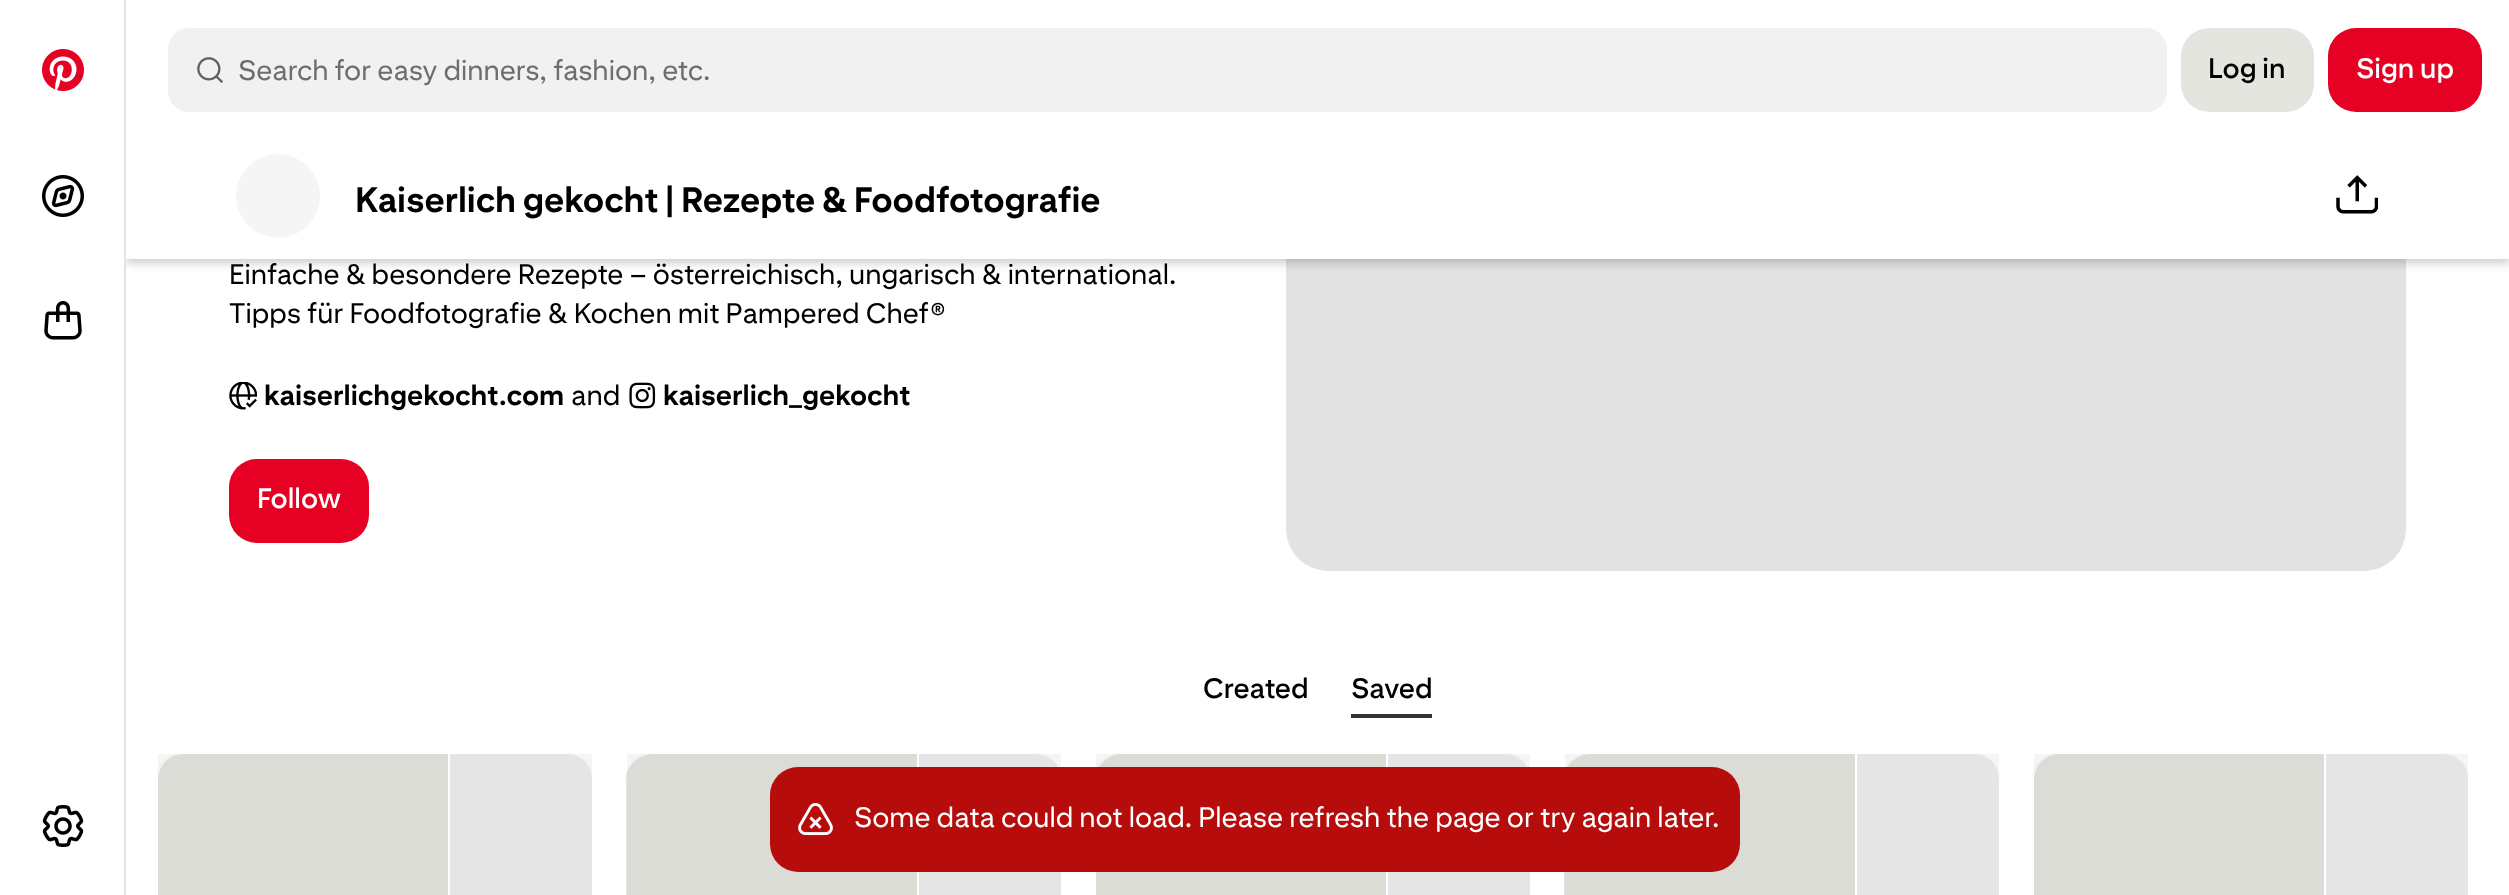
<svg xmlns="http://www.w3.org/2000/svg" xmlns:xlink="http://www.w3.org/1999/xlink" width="2509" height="895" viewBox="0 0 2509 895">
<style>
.cls-1{font:28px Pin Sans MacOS;fill:#6e6e6e}
.cls-2{font:500 28px Pin Sans MacOS;fill:#000000}
.cls-3{font:500 28px Pin Sans MacOS;fill:#ffffff}
.cls-4{font:bold 35px Pin Sans MacOS;fill:#000000}
.cls-5{font:28px Pin Sans MacOS;fill:#000000}
.cls-6{font:bold 28px Pin Sans MacOS;fill:#000000}
.cls-7{font:28px Pin Sans MacOS;fill:#ffffff}
</style>
<rect width="100%" height="100%" fill="#ffffff"/>
<rect fill="#e2e2e2" x="1286" y="-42" width="1120" height="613" rx="42"/>
<rect fill="#000000" fill-opacity="0.2" filter="blur(5px)" x="126" y="144" width="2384" height="119"/>
<rect fill="#ffffff" x="118" y="139" width="6" height="129"/>
<rect fill="#e5e5e0" x="124" y="0" width="2" height="895"/>
<image xlink:href="image0.png" x="42" y="49" width="42" height="42"/>
<image xlink:href="image1.png" x="42" y="175" width="42" height="42"/>
<image xlink:href="image2.png" x="44" y="301" width="38" height="39"/>
<image xlink:href="image3.png" x="42" y="805" width="42" height="42"/>
<rect fill="#ffffff" x="126" y="0" width="2383" height="259"/>
<rect fill="#f1f1f1" x="168" y="28" width="1999" height="84" rx="21"/>
<image xlink:href="image4.png" x="197" y="57" width="26" height="26"/>
<rect fill="#e5e5e0" x="2181" y="28" width="133" height="84" rx="28"/>
<rect fill="#e60023" x="2328" y="28" width="154" height="84" rx="28"/>
<circle fill="#f5f5f5" cx="278" cy="196" r="42"/>
<image xlink:href="image5.png" x="2336" y="175" width="42" height="39"/>
<image xlink:href="image6.png" x="229" y="382" width="28" height="28"/>
<image xlink:href="image7.png" x="629" y="382" width="27" height="27"/>
<rect fill="#e60023" x="229" y="459" width="140" height="84" rx="28"/>
<rect fill="#33332e" x="1351" y="714" width="81" height="4"/>
<path fill="#e5e5e0" d="M184 753H448V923H184C168.5 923 156 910.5 156 895V781C156 765.5 168.5 753 184 753Z"/>
<path fill="#ffffff" d="M184 754C169 754 158 766 158 780V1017C158 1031 169 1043 184 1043H448V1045H184C174 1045 165 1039 160 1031C158 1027 156 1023 156 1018V781C156 766 169 753 184 753H448V754Z"/>
<rect fill="#000000" fill-opacity="0.04" x="158" y="754" width="290" height="141"/>
<path fill="#e5e5e0" d="M448 753H565C580.5 753 593 765.5 593 781V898H448Z"/>
<path fill="#ffffff" d="M448 753V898H593V781C593 766 580 753 565 753Z"/>
<path fill="#efefef" d="M450 754H566C580.5 754 592 765.5 592 780V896H450Z"/>
<rect fill="#000000" fill-opacity="0.04" x="450" y="754" width="142" height="141"/>
<path fill="#e5e5e0" d="M653 753H917V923H653C637.5 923 625 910.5 625 895V781C625 765.5 637.5 753 653 753Z"/>
<path fill="#ffffff" d="M653 754C638 754 626 766 626 780V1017C626 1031 638 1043 653 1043H917V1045H653L646 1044C617 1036 625 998 625 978V820C625 805 623 790 626 775C628 762 640 753 653 753H917V754Z"/>
<rect fill="#000000" fill-opacity="0.04" x="627" y="754" width="290" height="141"/>
<path fill="#e5e5e0" d="M917 753H1034C1049.5 753 1062 765.5 1062 781V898H917Z"/>
<path fill="#ffffff" d="M917 753V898H1062V781C1062 766 1049 753 1034 753Z"/>
<path fill="#efefef" d="M919 754H1035C1049.5 754 1061 765.5 1061 780V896H919Z"/>
<rect fill="#000000" fill-opacity="0.04" x="919" y="754" width="142" height="141"/>
<path fill="#e5e5e0" d="M1122 753H1386V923H1122C1106.5 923 1094 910.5 1094 895V781C1094 765.5 1106.5 753 1122 753Z"/>
<path fill="#ffffff" d="M1122 754C1107 754 1096 766 1096 780V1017C1096 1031 1107 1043 1122 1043H1386V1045H1122C1112 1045 1103 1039 1098 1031C1096 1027 1094 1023 1094 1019V781C1094 766 1107 753 1122 753H1386V754Z"/>
<rect fill="#000000" fill-opacity="0.04" x="1096" y="754" width="290" height="141"/>
<path fill="#e5e5e0" d="M1386 753H1503C1518.5 753 1531 765.5 1531 781V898H1386Z"/>
<path fill="#ffffff" d="M1386 753V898H1531V781C1531 766 1518 753 1503 753Z"/>
<path fill="#efefef" d="M1388 754H1504C1518.5 754 1530 765.5 1530 780V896H1388Z"/>
<rect fill="#000000" fill-opacity="0.04" x="1388" y="754" width="142" height="141"/>
<path fill="#e5e5e0" d="M1591 753H1855V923H1591C1575.5 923 1563 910.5 1563 895V781C1563 765.5 1575.5 753 1591 753Z"/>
<path fill="#ffffff" d="M1591 754C1576 754 1564 766 1564 780V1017C1564 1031 1576 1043 1591 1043H1855V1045H1591C1581 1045 1572 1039 1567 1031C1565 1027 1563 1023 1563 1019V781C1563 766 1576 753 1591 753H1855V754Z"/>
<rect fill="#000000" fill-opacity="0.04" x="1565" y="754" width="290" height="141"/>
<path fill="#e5e5e0" d="M1855 753H1972C1987.5 753 2000 765.5 2000 781V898H1855Z"/>
<path fill="#ffffff" d="M1855 753V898H2000V781C2000 766 1987 753 1972 753Z"/>
<path fill="#efefef" d="M1857 754H1973C1987.5 754 1999 765.5 1999 780V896H1857Z"/>
<rect fill="#000000" fill-opacity="0.04" x="1857" y="754" width="142" height="141"/>
<path fill="#e5e5e0" d="M2060 753H2324V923H2060C2044.5 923 2032 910.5 2032 895V781C2032 765.5 2044.5 753 2060 753Z"/>
<path fill="#ffffff" d="M2060 754C2045 754 2034 766 2034 780V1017C2034 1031 2045 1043 2060 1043H2324V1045H2060C2050 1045 2041 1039 2036 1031C2034 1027 2032 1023 2032 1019V781C2032 766 2045 753 2060 753H2324V754Z"/>
<rect fill="#000000" fill-opacity="0.04" x="2034" y="754" width="290" height="141"/>
<path fill="#e5e5e0" d="M2324 753H2441C2456.5 753 2469 765.5 2469 781V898H2324Z"/>
<path fill="#ffffff" d="M2324 753V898H2469V781C2469 766 2456 753 2441 753Z"/>
<path fill="#efefef" d="M2326 754H2442C2456.5 754 2468 765.5 2468 780V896H2326Z"/>
<rect fill="#000000" fill-opacity="0.04" x="2326" y="754" width="142" height="141"/>
<rect fill="#b60c0c" x="770" y="767" width="970" height="105" rx="28"/>
<image xlink:href="image8.png" x="798" y="803" width="35" height="33"/>
<text class="cls-1" x="238" y="80">Search for easy dinners, fashion, etc.</text>
<text class="cls-2" x="2208" y="78">Log in</text>
<text class="cls-3" x="2356" y="78">Sign up</text>
<text class="cls-4" x="355" y="212">Kaiserlich gekocht | Rezepte &amp; Foodfotografie</text>
<text class="cls-5"><tspan x="229" y="284">Einfache &amp; besondere Rezepte – österreichisch, ungarisch &amp; international.</tspan><tspan x="229" y="323">Tipps für Foodfotografie &amp; Kochen mit Pampered Chef®</tspan></text>
<text class="cls-6" x="264" y="405">kaiserlichgekocht.com</text>
<text class="cls-5" x="571" y="405">and</text>
<text class="cls-6" x="663" y="405">kaiserlich_gekocht</text>
<text class="cls-3" x="257" y="508">Follow</text>
<text class="cls-2" x="1203" y="698">Created</text>
<text class="cls-2" x="1351" y="698">Saved</text>
<text class="cls-7" x="854" y="827">Some data could not load. Please refresh the page or try again later.</text>
</svg>
